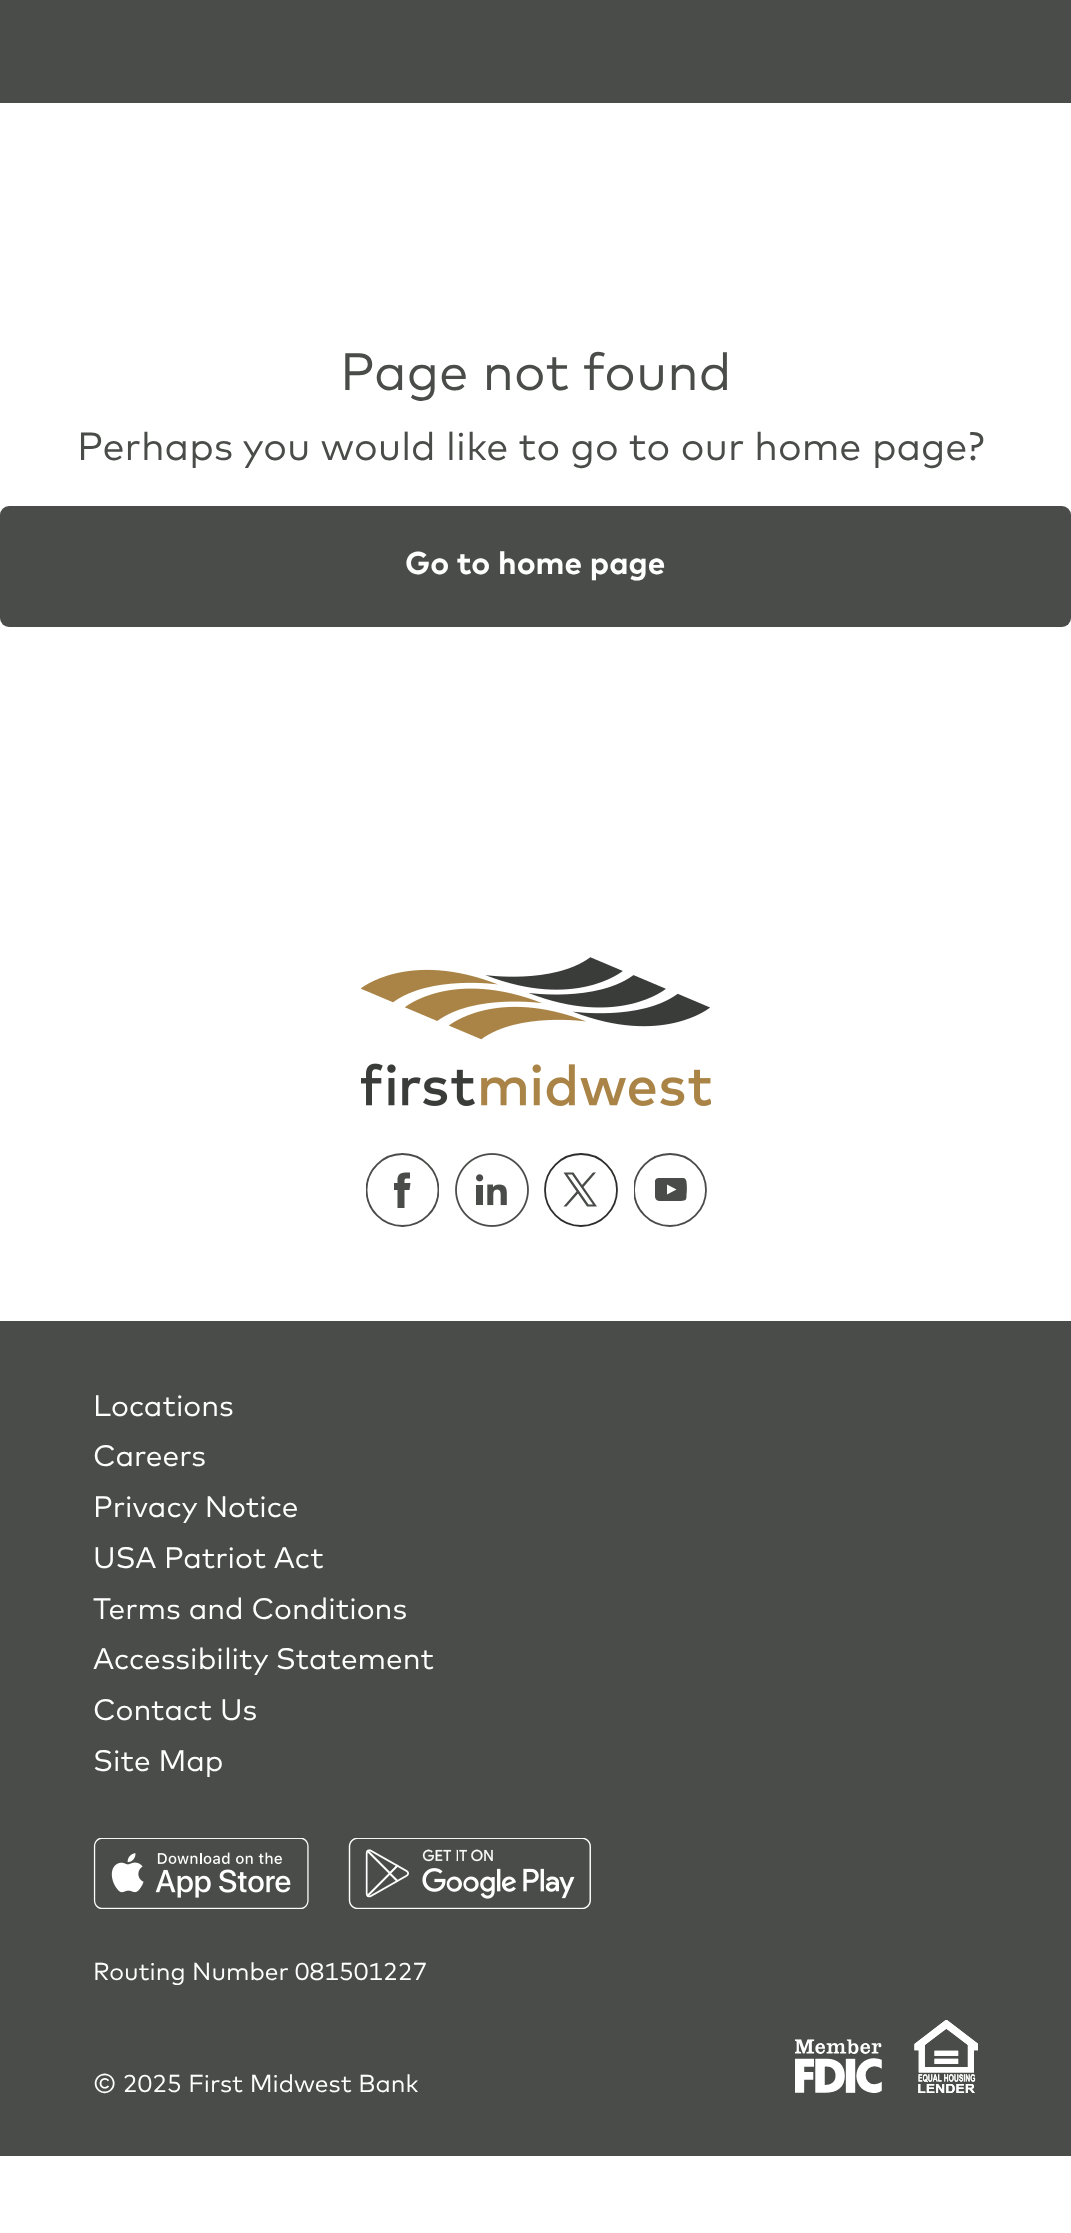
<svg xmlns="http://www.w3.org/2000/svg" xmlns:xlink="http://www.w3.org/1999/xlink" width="1071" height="2233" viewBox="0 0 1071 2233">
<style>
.cls-1{font:52.5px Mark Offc;fill:#494c49}
.cls-2{font:39.4px Mark Offc;fill:#494c49}
.cls-3{font:bold 31.5px Mark Offc;fill:#ffffff}
.cls-4{font:29.75px Mark Offc;fill:#ffffff}
.cls-5{font:24.5px Mark Offc;fill:#ffffff}
</style>
<defs>
<clipPath id="clip1"><rect x="366" y="1153" width="73" height="74"/></clipPath>
<clipPath id="clip2"><rect x="634" y="1153" width="73" height="74"/></clipPath>
<clipPath id="clip3"><rect x="655" y="1178" width="32" height="23"/></clipPath>
</defs>
<rect width="100%" height="100%" fill="#ffffff"/>
<rect fill="#494c49" x="0" y="0" width="1071" height="103"/>
<rect fill="#494c49" x="0" y="506" width="1071" height="121" rx="9"/>
<image xlink:href="image0.png" x="361" y="957" width="350" height="149"/>
<g clip-path="url(#clip1)">
<circle fill="none" stroke="#494c49" stroke-width="1.8" cx="402.5" cy="1190" r="36"/>
</g>
<path fill="#494c49" d="M397.5 1208H404.5V1190H409.5L410.5 1183H404.5C404.5 1178 404.5 1178.5 410 1178.5V1172.5C405 1172.5 398.5 1171.5 397.5 1178.5V1183H394V1190H397.5Z"/>
<image xlink:href="image1.png" x="455" y="1153" width="74" height="74"/>
<circle fill="none" stroke="#2c2e2b" stroke-width="1.8" cx="581" cy="1190" r="36"/>
<path fill="#494c49" d="M583.5 1187L596 1172.5H593L582 1185L573.5 1172.5H563.5L576.5 1191.5L563.5 1206.5H566.5L578 1193.5L587 1206.5H597ZM579.5 1191.5L567.5 1174.5H572L593 1204.5H588.5Z"/>
<g clip-path="url(#clip2)">
<circle fill="none" stroke="#494c49" stroke-width="1.8" cx="670" cy="1190" r="36"/>
</g>
<g clip-path="url(#clip3)">
<path fill="#494c49" d="M686.5 1182C686 1177 682.5 1178 678.5 1178H660.5C655.5 1178 655 1179 654.5 1184C654.5 1188 654.5 1192.5 655 1196.5C655.5 1201.5 659 1201 663 1201H681C686 1200.5 686.5 1200 686.5 1195C687 1190.5 687 1186.5 686.5 1182M667 1194.5V1184.5L676.5 1189.5Z"/>
</g>
<rect fill="#494c49" x="0" y="1321" width="1071" height="835"/>
<image xlink:href="image2.png" x="93" y="1838" width="216" height="71"/>
<image xlink:href="image3.png" x="348" y="1838" width="243" height="71"/>
<image xlink:href="image4.png" x="795" y="2020" width="183" height="73"/>
<text class="cls-1" x="340" y="390">Page not found</text>
<text class="cls-2" x="77" y="460">Perhaps you would like to go to our home page?</text>
<text class="cls-3" x="405" y="574">Go to home page</text>
<text class="cls-4"><tspan x="93" y="1416">Locations</tspan><tspan x="93" y="1466">Careers</tspan><tspan x="93" y="1517">Privacy Notice</tspan><tspan x="93" y="1568">USA Patriot Act</tspan><tspan x="93" y="1619">Terms and Conditions</tspan><tspan x="93" y="1669">Accessibility Statement</tspan><tspan x="93" y="1720">Contact Us</tspan><tspan x="93" y="1771">Site Map</tspan></text>
<text class="cls-5" x="93" y="1980">Routing Number 081501227</text>
<text class="cls-5" x="93" y="2092">© 2025 First Midwest Bank</text>
</svg>
